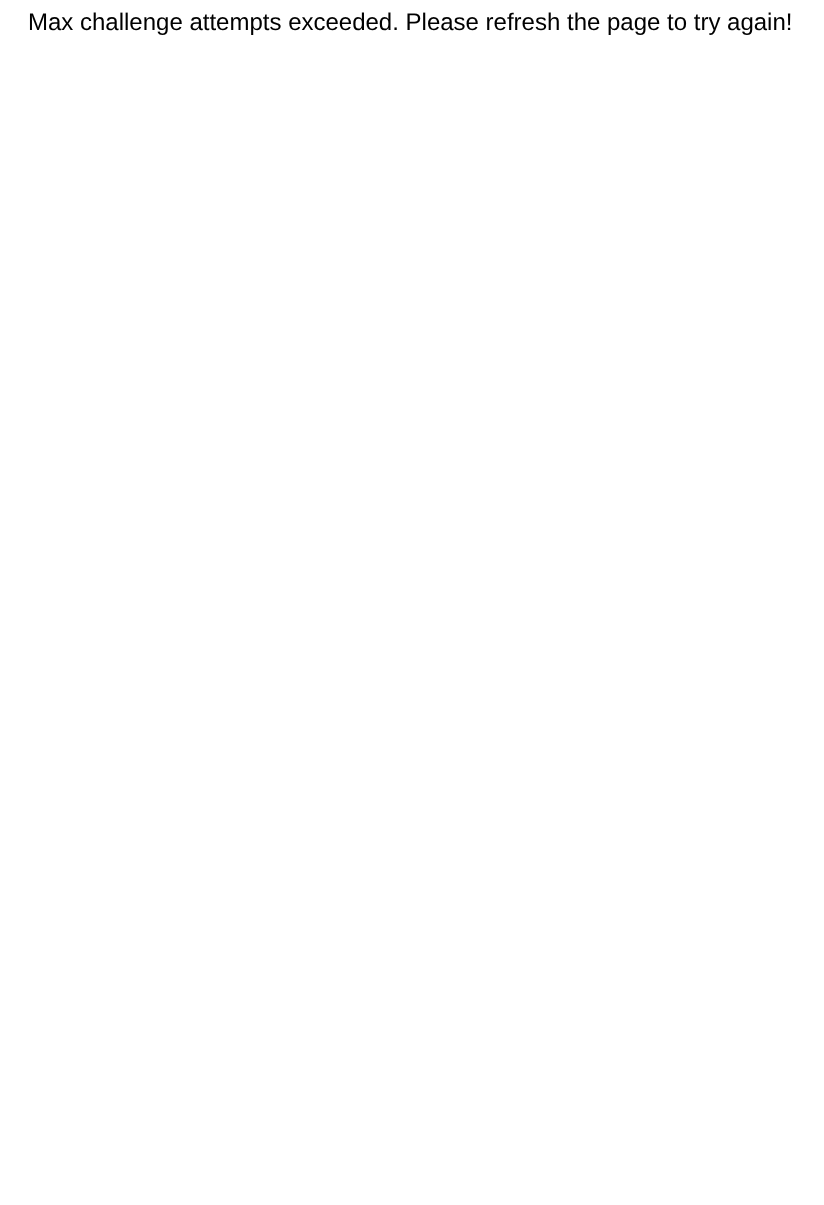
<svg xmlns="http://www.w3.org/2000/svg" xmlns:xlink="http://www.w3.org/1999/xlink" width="824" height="1205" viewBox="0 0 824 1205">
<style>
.cls-1{font:24px Liberation Sans;fill:#000000}
</style>
<rect width="100%" height="100%" fill="#ffffff"/>
<text class="cls-1" x="28" y="30">Max challenge attempts exceeded. Please refresh the page to try again!</text>
</svg>
